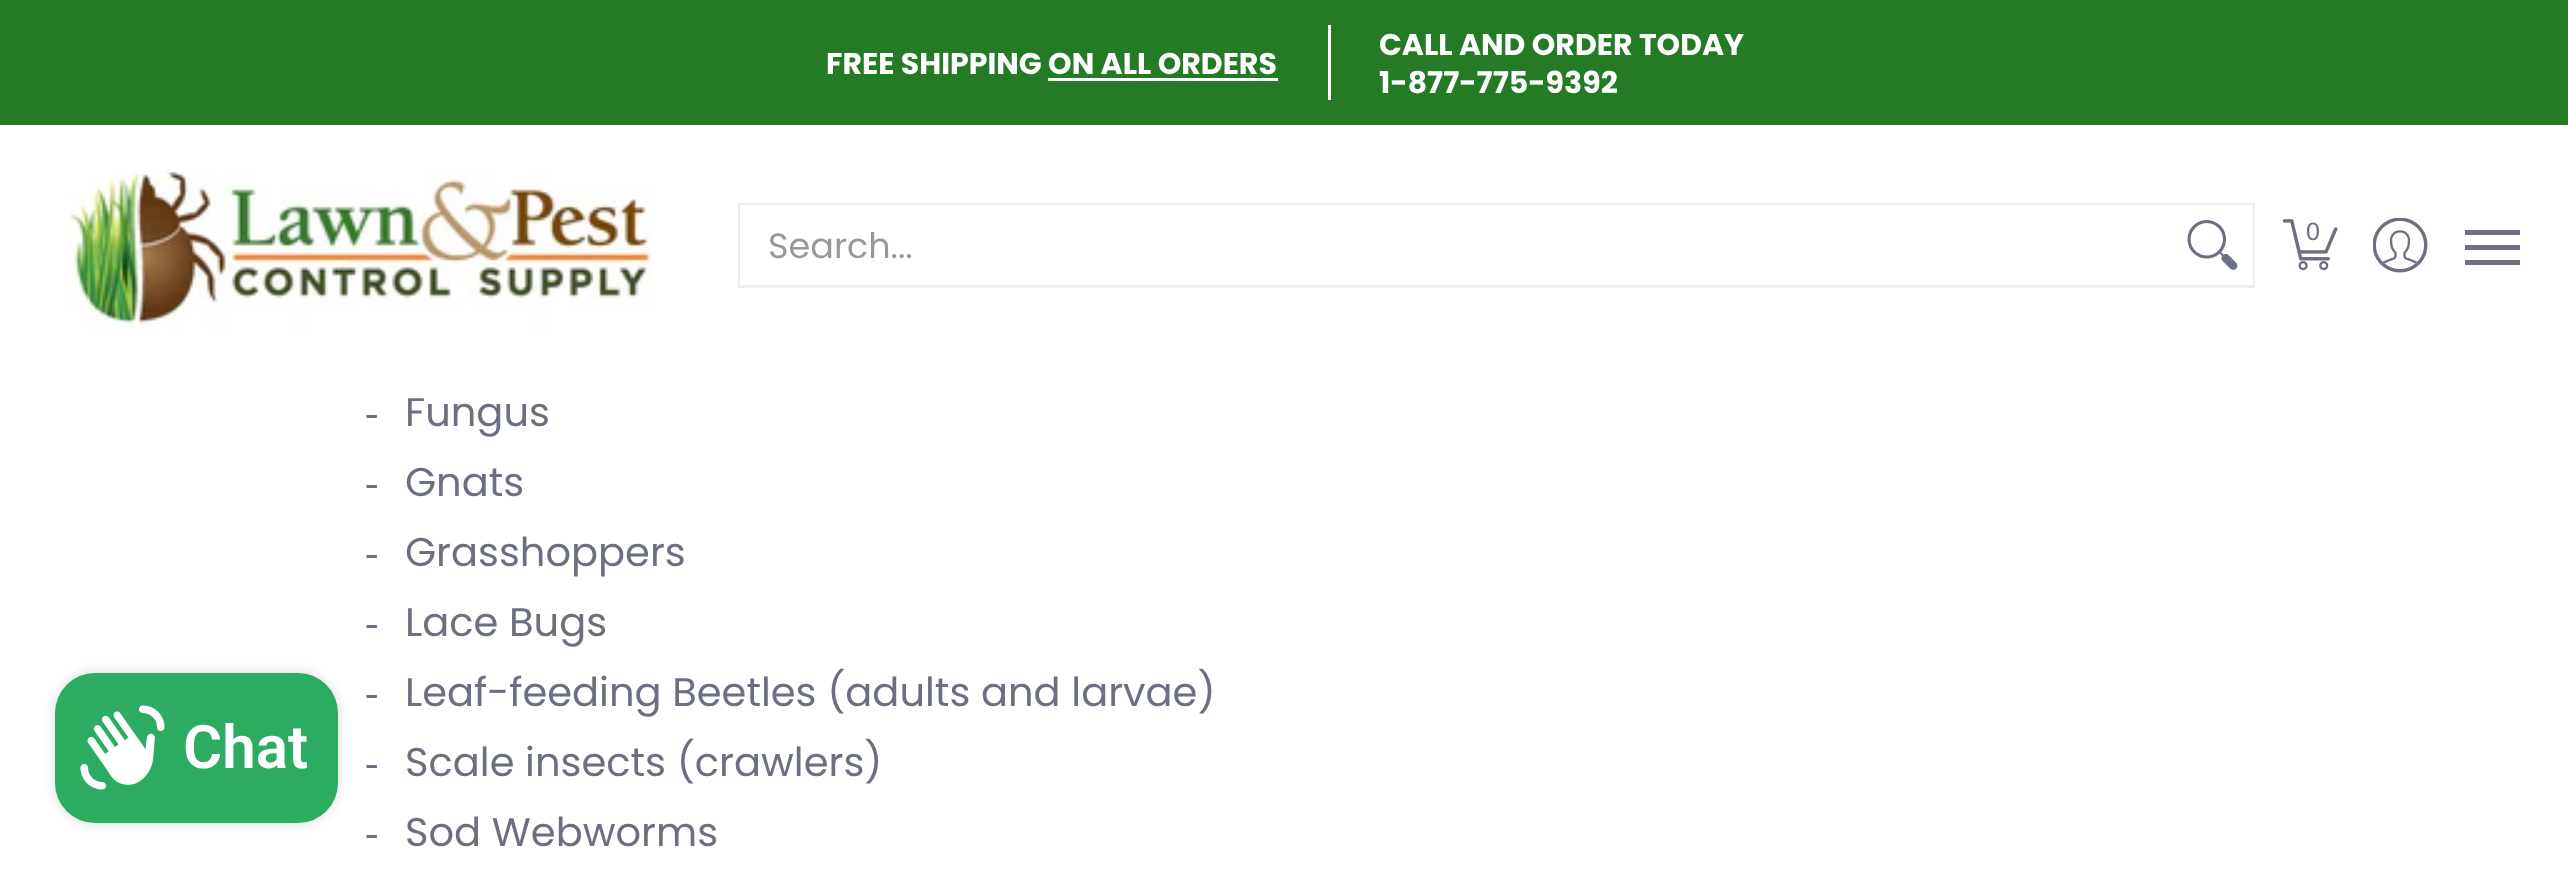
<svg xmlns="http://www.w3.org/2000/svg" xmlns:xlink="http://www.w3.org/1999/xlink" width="2568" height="875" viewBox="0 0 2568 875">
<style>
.cls-1{font:bold 30px Poppins;fill:#ffffff}
.cls-2{font:35px Poppins;fill:#989898}
.cls-3{font:25px Liberation Sans;fill:#6b6f81}
.cls-4{font:600 60px Roboto;fill:#ffffff}
.cls-5{font:40px Liberation Sans;fill:#6b6f81}
.cls-6{font:40px Poppins;fill:#6b6f81}
</style>
<rect width="100%" height="100%" fill="#ffffff"/>
<rect fill="#247a25" x="0" y="0" width="2568" height="125"/>
<rect fill="#ffffff" x="1048" y="78" width="230" height="3"/>
<rect fill="#ffffff" x="1328" y="25" width="3" height="75"/>
<image xlink:href="image0.png" x="69" y="170" width="584" height="161"/>
<rect fill="none" stroke="#edeef4" stroke-width="3" x="739.5" y="204.5" width="1514" height="82"/>
<rect fill="#ffffff" x="740" y="205" width="1513" height="80"/>
<image xlink:href="image1.png" x="2187" y="220" width="51" height="50"/>
<image xlink:href="image2.png" x="2283" y="219" width="55" height="52"/>
<image xlink:href="image3.png" x="2373" y="218" width="55" height="55"/>
<rect fill="#6b6f81" x="2465" y="230" width="55" height="5"/>
<rect fill="#6b6f81" x="2465" y="260" width="55" height="5"/>
<rect fill="#6b6f81" x="2465" y="245" width="55" height="5"/>
<rect fill="#000000" fill-opacity="0.15" filter="blur(6px)" x="55" y="673" width="283" height="150" rx="40"/>
<rect fill="#2cac61" x="55" y="673" width="283" height="150" rx="40"/>
<image xlink:href="image4.png" x="80" y="705" width="85" height="85"/>
<text class="cls-1" x="826" y="74">FREE SHIPPING ON ALL ORDERS</text>
<text class="cls-1"><tspan x="1379" y="55">CALL AND ORDER TODAY</tspan><tspan x="1379" y="93">1-877-775-9392</tspan></text>
<text class="cls-2" x="768" y="258">Search...</text>
<text class="cls-3" x="2306" y="240">0</text>
<text class="cls-4" x="183" y="768">Chat</text>
<text class="cls-5" x="365" y="426">‑</text>
<text class="cls-6" x="405" y="426">Fungus</text>
<text class="cls-5" x="365" y="496">‑</text>
<text class="cls-6" x="405" y="496">Gnats</text>
<text class="cls-5" x="365" y="566">‑</text>
<text class="cls-6" x="405" y="566">Grasshoppers</text>
<text class="cls-5" x="365" y="636">‑</text>
<text class="cls-6" x="405" y="636">Lace Bugs</text>
<text class="cls-5" x="365" y="706">‑</text>
<text class="cls-6" x="405" y="706">Leaf-feeding Beetles (adults and larvae)</text>
<text class="cls-5" x="365" y="776">‑</text>
<text class="cls-6" x="405" y="776">Scale insects (crawlers)</text>
<text class="cls-5" x="365" y="846">‑</text>
<text class="cls-6" x="405" y="846">Sod Webworms</text>
</svg>
